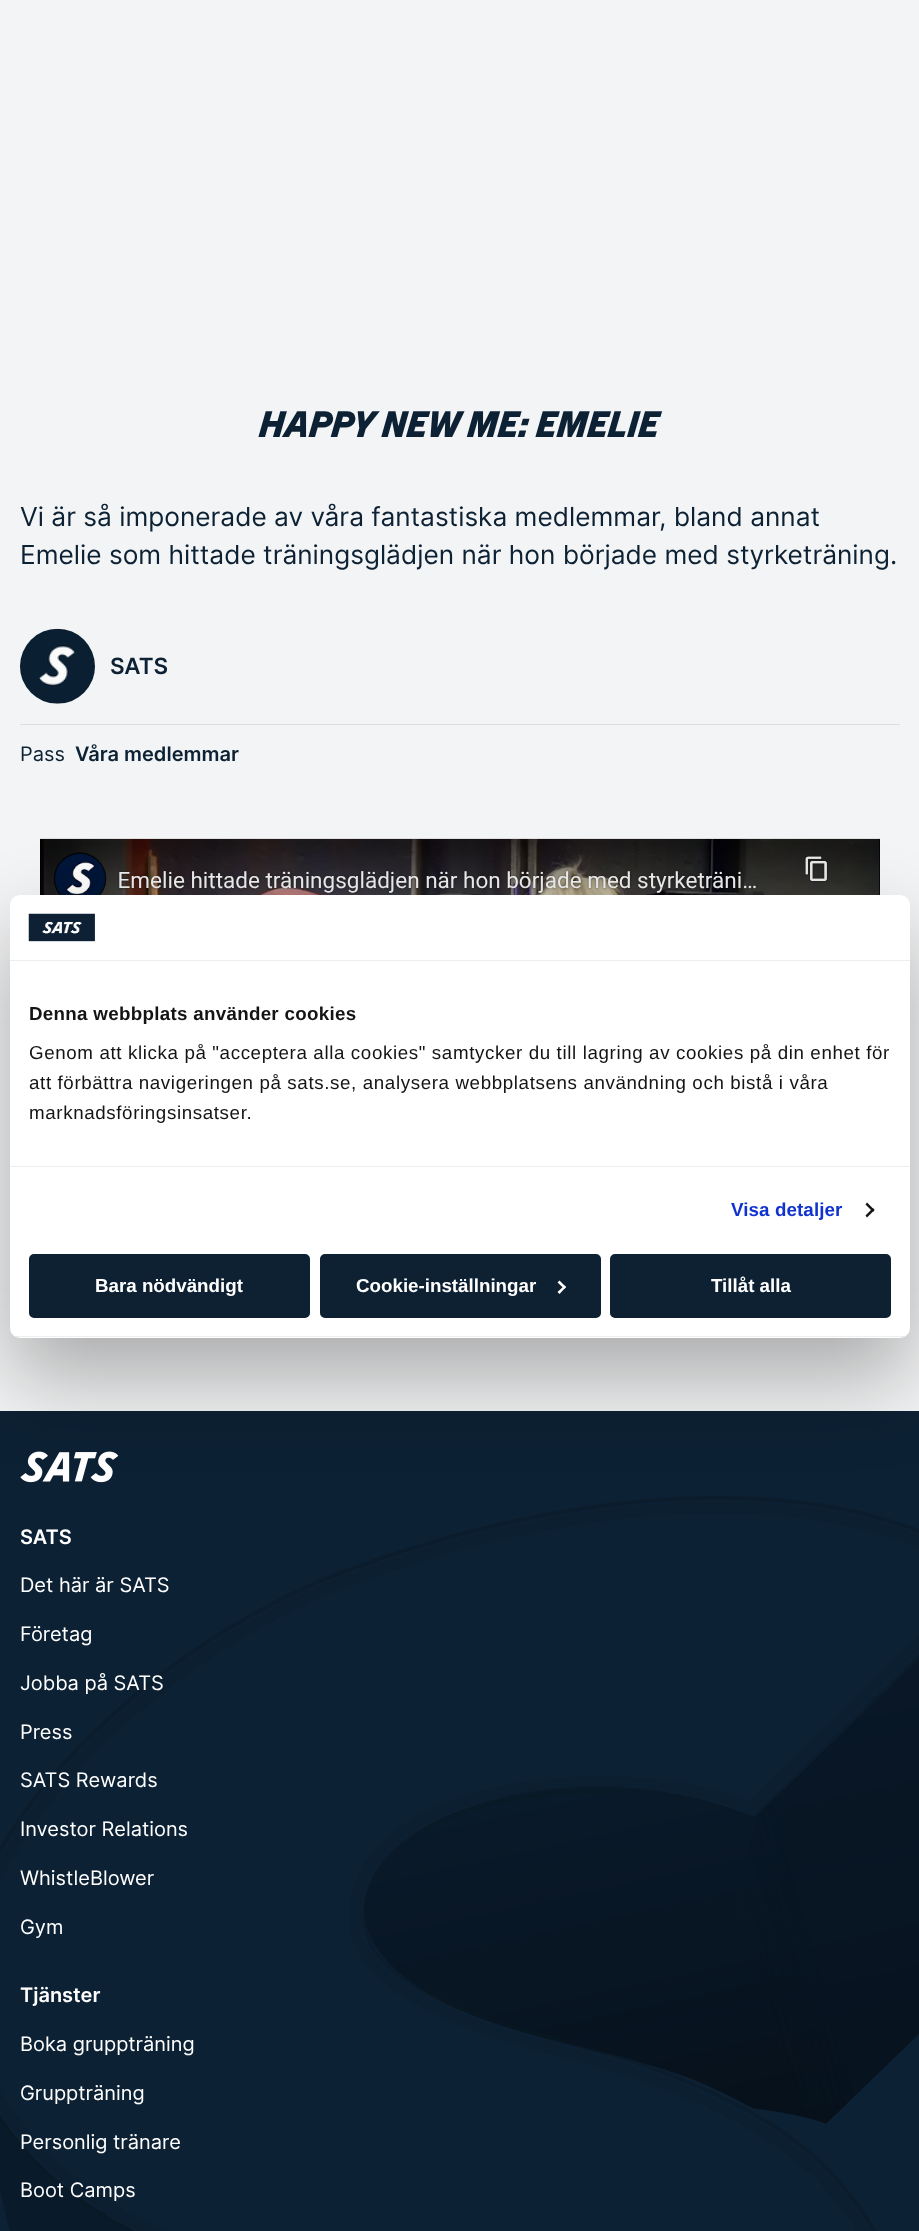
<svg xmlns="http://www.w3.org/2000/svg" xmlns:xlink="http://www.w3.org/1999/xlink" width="919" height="2231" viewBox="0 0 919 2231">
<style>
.cls-1{font:italic bold 36.75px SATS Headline;fill:#0d2134}
.cls-2{font:26.25px Inter;fill:#0d2134}
.cls-3{font:600 22.5px Inter;fill:#0d2134}
.cls-4{font:20px Inter;fill:#0d2134}
.cls-5{font:600 20px Inter;fill:#0d2134}
.cls-6{font:600 20px Inter;fill:#ffffff}
.cls-7{font:20px Inter;fill:#ffffff}
.cls-8{font:bold 18.75px Liberation Sans;letter-spacing:0.3px;fill:#141414}
.cls-9{font:18.75px Liberation Sans;letter-spacing:0.62px;fill:#141414}
.cls-10{font:bold 18.75px Liberation Sans;letter-spacing:0.1px;fill:#1032cf}
.cls-11{font:bold 18.75px Liberation Sans;fill:#ffffff}
</style>
<defs>
<clipPath id="clip1"><rect x="10" y="895" width="900" height="443" rx="10"/></clipPath>
</defs>
<rect width="100%" height="100%" fill="#f3f4f5"/>
<rect fill="#dcdee0" x="20" y="724" width="880" height="1"/>
<image xlink:href="image0.png" x="20" y="628" width="75" height="76"/>
<image xlink:href="image1.png" x="40" y="838" width="840" height="57"/>
<rect fill="#0d2134" x="0" y="1411" width="919" height="820"/>
<image xlink:href="image2.png" x="0" y="1496" width="919" height="735"/>
<image xlink:href="image3.png" x="20" y="1451" width="99" height="32"/>
<rect fill="#000000" fill-opacity="0.3" filter="blur(42.5px)" x="10" y="935" width="900" height="443" rx="10"/>
<rect fill="#ffffff" x="10" y="895" width="900" height="443" rx="10"/>
<rect fill="#eeeeee" x="10" y="960" width="900" height="1"/>
<image xlink:href="image4.png" x="28" y="913" width="67" height="29"/>
<rect fill="#eeeeee" x="10" y="1166" width="900" height="1"/>
<path fill="#141414" d="M867 1202.5L874.5 1210L873 1212L865.5 1204.5Z"/>
<path fill="#141414" d="M873 1208L874.5 1210L867 1217.5L865.5 1215.5Z"/>
<g clip-path="url(#clip1)">
<rect fill="#eeeeee" x="10" y="1336" width="900" height="1"/>
</g>
<rect fill="#0e2133" stroke="#0e2133" stroke-width="3" x="30.5" y="1255.5" width="278" height="61" rx="3.5"/>
<rect fill="#0e2133" stroke="#0e2133" stroke-width="3" x="321.5" y="1255.5" width="278" height="61" rx="3.5"/>
<path fill="#ffffff" d="M559.5 1280.5L566 1287L564.5 1289L557.5 1282.5Z"/>
<path fill="#ffffff" d="M564.5 1285.5L566 1287L559.5 1294L557.5 1292Z"/>
<rect fill="#0e2133" stroke="#0e2133" stroke-width="3" x="611.5" y="1255.5" width="278" height="61" rx="3.5"/>
<text class="cls-1" x="260" y="437">HAPPY NEW ME: EMELIE</text>
<text class="cls-2"><tspan x="20" y="526">Vi är så imponerade av våra fantastiska medlemmar, bland annat</tspan><tspan x="20" y="564">Emelie som hittade träningsglädjen när hon började med styrketräning.</tspan></text>
<text class="cls-3" x="110" y="674">SATS</text>
<text class="cls-4" x="20" y="761">Pass</text>
<text class="cls-5" x="75" y="761">Våra medlemmar</text>
<text class="cls-6" x="20" y="1544">SATS</text>
<text class="cls-7" x="20" y="1592">Det här är SATS</text>
<text class="cls-7" x="20" y="1641">Företag</text>
<text class="cls-7" x="20" y="1690">Jobba på SATS</text>
<text class="cls-7" x="20" y="1739">Press</text>
<text class="cls-7" x="20" y="1787">SATS Rewards</text>
<text class="cls-7" x="20" y="1836">Investor Relations</text>
<text class="cls-7" x="20" y="1885">WhistleBlower</text>
<text class="cls-7" x="20" y="1934">Gym</text>
<text class="cls-6" x="20" y="2002">Tjänster</text>
<text class="cls-7" x="20" y="2051">Boka gruppträning</text>
<text class="cls-7" x="20" y="2100">Gruppträning</text>
<text class="cls-7" x="20" y="2149">Personlig tränare</text>
<text class="cls-7" x="20" y="2197">Boot Camps</text>
<text class="cls-8" x="29" y="1020">Denna webbplats använder cookies</text>
<text class="cls-9"><tspan x="29" y="1059">Genom att klicka på "acceptera alla cookies" samtycker du till lagring av cookies på din enhet för</tspan><tspan x="29" y="1089">att förbättra navigeringen på sats.se, analysera webbplatsens användning och bistå i våra</tspan><tspan x="29" y="1119">marknadsföringsinsatser.</tspan></text>
<text class="cls-10" x="731" y="1216">Visa detaljer</text>
<text class="cls-11" x="95" y="1292">Bara nödvändigt</text>
<text class="cls-11" x="356" y="1292">Cookie-inställningar</text>
<text class="cls-11" x="711" y="1292">Tillåt alla</text>
</svg>
